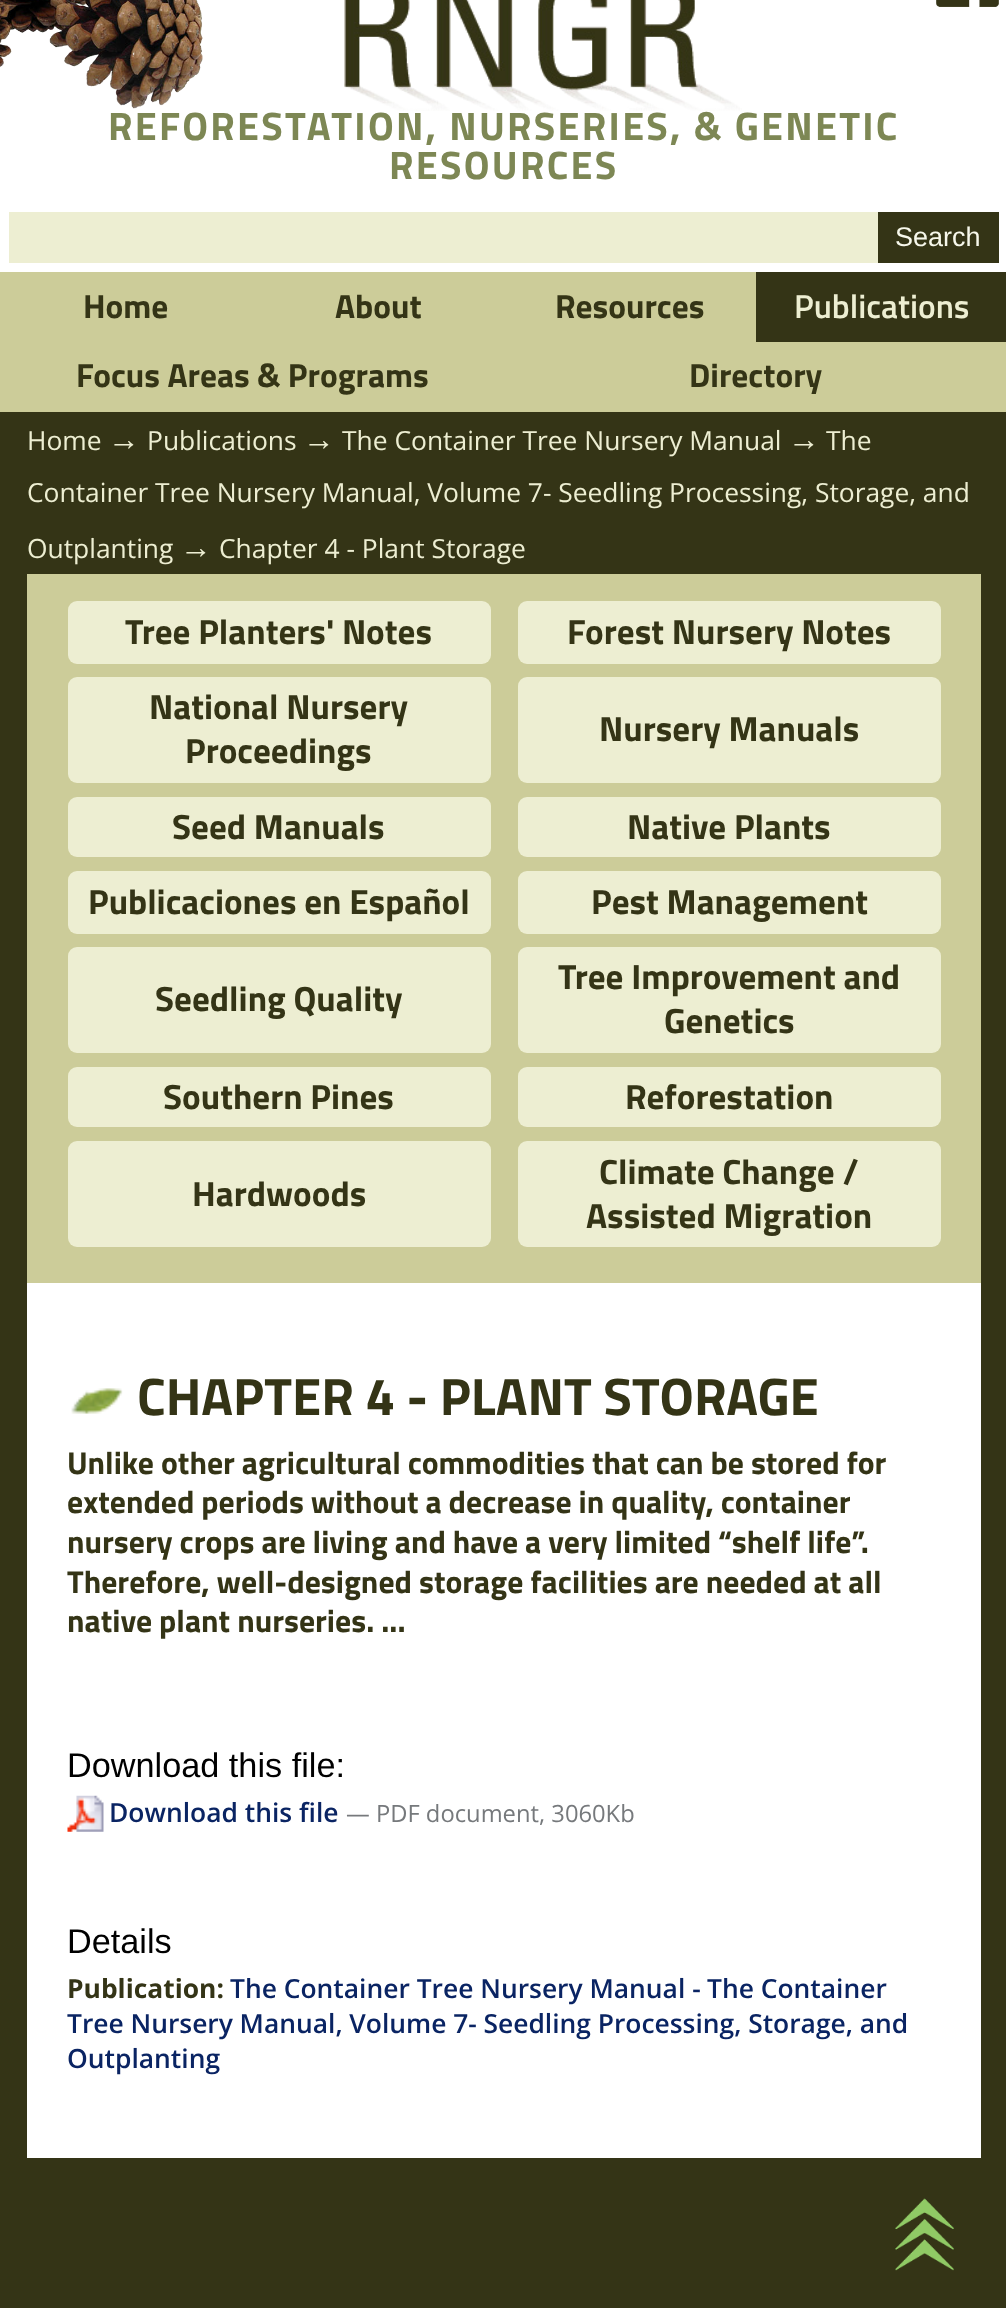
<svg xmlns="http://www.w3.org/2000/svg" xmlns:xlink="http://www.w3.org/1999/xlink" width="1006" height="2308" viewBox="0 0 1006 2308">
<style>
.cls-1{font:bold 39.6px Titillium Web;letter-spacing:2.25px;fill:#7d8754}
.cls-2{font:27px Liberation Sans;fill:#f7f8eb}
.cls-3{font:bold 33.4px Titillium Web;fill:#343416}
.cls-4{font:600 33.4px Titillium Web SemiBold;fill:#edeed2}
.cls-5{font:26.4px Open Sans;fill:#edeed2}
.cls-6{font:31.7px Liberation Serif;fill:#edeed2}
.cls-7{font:bold 35.1px Titillium Web;fill:#343416}
.cls-8{font:bold 52.75px Titillium Web;fill:#343416}
.cls-9{font:bold 31.7px Titillium Web;fill:#343416}
.cls-10{font:34.25px Liberation Sans;fill:#000000}
.cls-11{font:600 26.4px Open Sans;fill:#0a2463}
.cls-12{font:23.75px Open Sans;fill:#76797c}
.cls-13{font:bold 26.4px Open Sans;fill:#343416}
</style>
<rect width="100%" height="100%" fill="#343416"/>
<rect fill="#ffffff" x="0" y="0" width="1006" height="272"/>
<image xlink:href="image0.png" x="0" y="0" width="203" height="109"/>
<image xlink:href="image1.png" x="344" y="0" width="398" height="111"/>
<image xlink:href="image2.png" x="936" y="0" width="63" height="7"/>
<rect fill="#edeed2" x="9" y="212" width="869" height="51"/>
<rect fill="#343416" x="878" y="212" width="121" height="51"/>
<rect fill="#cccc99" x="0" y="272" width="1006" height="140"/>
<rect fill="#343416" x="756" y="272" width="250" height="70"/>
<rect fill="#cccc99" x="27" y="574" width="954" height="709"/>
<rect fill="#edeed2" x="68" y="601" width="423" height="63" rx="9"/>
<rect fill="#edeed2" x="518" y="601" width="423" height="63" rx="9"/>
<rect fill="#edeed2" x="68" y="677" width="423" height="106" rx="9"/>
<rect fill="#edeed2" x="518" y="677" width="423" height="106" rx="9"/>
<rect fill="#edeed2" x="68" y="797" width="423" height="60" rx="9"/>
<rect fill="#edeed2" x="518" y="797" width="423" height="60" rx="9"/>
<rect fill="#edeed2" x="68" y="871" width="423" height="63" rx="9"/>
<rect fill="#edeed2" x="518" y="871" width="423" height="63" rx="9"/>
<rect fill="#edeed2" x="68" y="947" width="423" height="106" rx="9"/>
<rect fill="#edeed2" x="518" y="947" width="423" height="106" rx="9"/>
<rect fill="#edeed2" x="68" y="1067" width="423" height="60" rx="9"/>
<rect fill="#edeed2" x="518" y="1067" width="423" height="60" rx="9"/>
<rect fill="#edeed2" x="68" y="1141" width="423" height="106" rx="9"/>
<rect fill="#edeed2" x="518" y="1141" width="423" height="106" rx="9"/>
<rect fill="#ffffff" x="27" y="1283" width="954" height="875"/>
<image xlink:href="image3.png" x="71" y="1388" width="52" height="26"/>
<image xlink:href="image4.png" x="67" y="1795" width="37" height="37"/>
<image xlink:href="image5.png" x="895" y="2198" width="59" height="73"/>
<text class="cls-1" x="108" y="140">REFORESTATION, NURSERIES, &amp; GENETIC</text>
<text class="cls-1" x="389" y="179">RESOURCES</text>
<text class="cls-2" x="895" y="246">Search</text>
<text class="cls-3" x="83" y="318">Home</text>
<text class="cls-3" x="335" y="318">About</text>
<text class="cls-3" x="555" y="318">Resources</text>
<text class="cls-4" x="794" y="318">Publications</text>
<text class="cls-3" x="76" y="387">Focus Areas &amp; Programs</text>
<text class="cls-3" x="689" y="387">Directory</text>
<text class="cls-5" x="27" y="450">Home</text>
<text class="cls-6" x="108" y="450">→</text>
<text class="cls-5" x="147" y="450">Publications</text>
<text class="cls-6" x="303" y="450">→</text>
<text class="cls-5" x="342" y="450">The Container Tree Nursery Manual</text>
<text class="cls-6" x="788" y="450">→</text>
<text class="cls-5" x="826" y="450">The</text>
<text class="cls-5" x="27" y="502" word-spacing="-0.1">Container Tree Nursery Manual, Volume 7- Seedling Processing, Storage, and</text>
<text class="cls-5" x="27" y="558">Outplanting</text>
<text class="cls-6" x="180" y="558">→</text>
<text class="cls-5" x="219" y="558">Chapter 4 - Plant Storage</text>
<text class="cls-7" x="125" y="644">Tree Planters' Notes</text>
<text class="cls-7" x="567" y="644">Forest Nursery Notes</text>
<text class="cls-7" x="149" y="719">National Nursery</text>
<text class="cls-7" x="185" y="763">Proceedings</text>
<text class="cls-7" x="599" y="741">Nursery Manuals</text>
<text class="cls-7" x="172" y="839">Seed Manuals</text>
<text class="cls-7" x="627" y="839">Native Plants</text>
<text class="cls-7" x="88" y="914">Publicaciones en Español</text>
<text class="cls-7" x="591" y="914">Pest Management</text>
<text class="cls-7" x="155" y="1011">Seedling Quality</text>
<text class="cls-7" x="558" y="989">Tree Improvement and</text>
<text class="cls-7" x="664" y="1033">Genetics</text>
<text class="cls-7" x="163" y="1109">Southern Pines</text>
<text class="cls-7" x="625" y="1109">Reforestation</text>
<text class="cls-7" x="192" y="1206">Hardwoods</text>
<text class="cls-7" x="599" y="1184">Climate Change /</text>
<text class="cls-7" x="586" y="1228">Assisted Migration</text>
<text class="cls-8" x="137" y="1415">CHAPTER 4 - PLANT STORAGE</text>
<text class="cls-9"><tspan x="67" y="1474">Unlike other agricultural commodities that can be stored for</tspan><tspan x="67" y="1513">extended periods without a decrease in quality, container</tspan><tspan x="67" y="1553">nursery crops are living and have a very limited “shelf life”.</tspan><tspan x="67" y="1593">Therefore, well-designed storage facilities are needed at all</tspan><tspan x="67" y="1632">native plant nurseries. ...</tspan></text>
<text class="cls-10" x="67" y="1777">Download this file:</text>
<text class="cls-11" x="109" y="1822">Download this file</text>
<text class="cls-12" x="346" y="1822">— PDF document, 3060Kb</text>
<text class="cls-10" x="67" y="1953">Details</text>
<text class="cls-13" x="67" y="1998">Publication:</text>
<text class="cls-11" x="230" y="1998">The Container Tree Nursery Manual -</text>
<text class="cls-11" x="707" y="1998">The Container</text>
<text class="cls-11"><tspan x="67" y="2033" word-spacing="-0.1">Tree Nursery Manual, Volume 7- Seedling Processing, Storage, and</tspan><tspan x="67" y="2068">Outplanting</tspan></text>
</svg>
